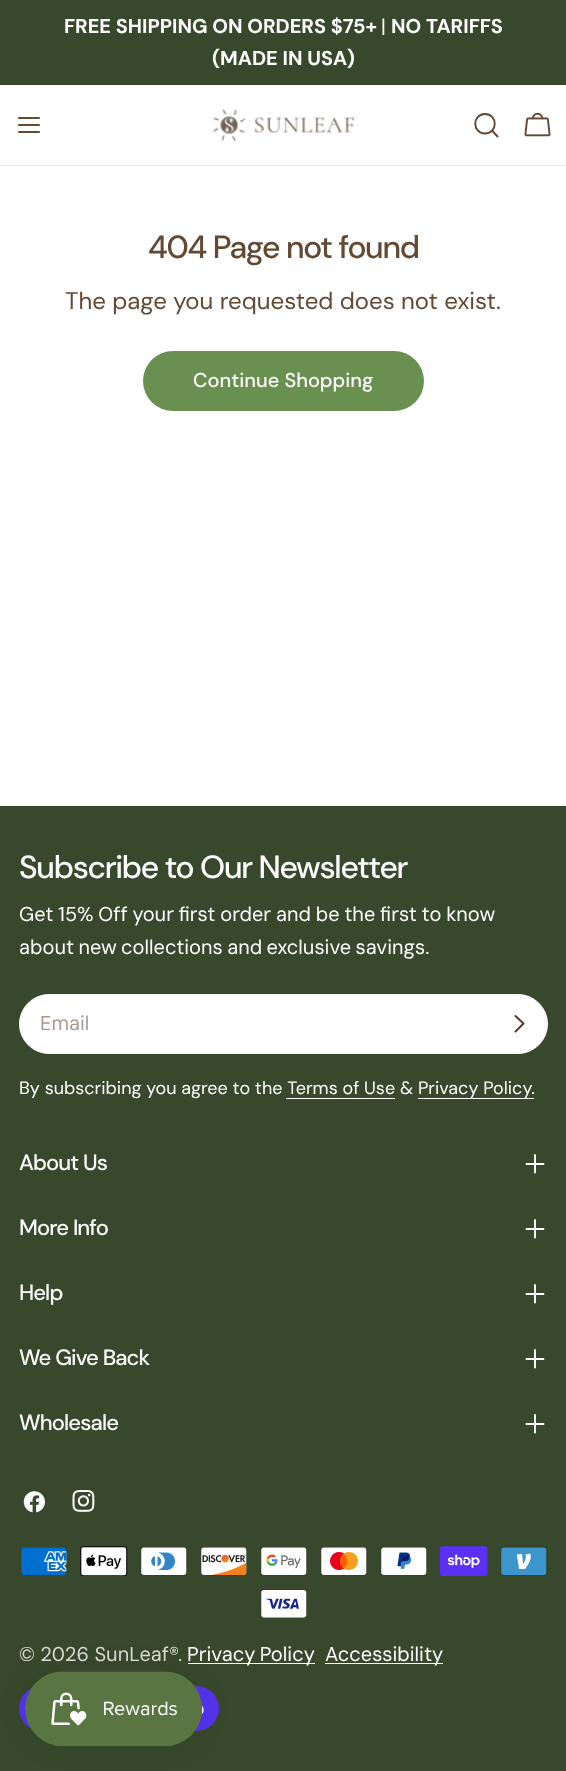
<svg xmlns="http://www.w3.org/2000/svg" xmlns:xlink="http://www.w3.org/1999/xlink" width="566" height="1771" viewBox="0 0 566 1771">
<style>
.cls-1{font:bold 20px DM Sans;fill:#ffffff}
.cls-2{font:20px 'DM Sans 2';fill:#ffffff}
.cls-3{font:500 32px DM Sans;letter-spacing:-1.25px;fill:#614934}
.cls-4{font:24px DM Sans;fill:#614934}
.cls-5{font:500 20px 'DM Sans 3';fill:#ffffff}
.cls-6{font:500 32px DM Sans;letter-spacing:-1.25px;fill:#ffffff}
.cls-7{font:20px 'DM Sans 2';fill:#a89a94}
.cls-8{font:18px 'DM Sans 3';fill:#ffffff}
.cls-9{font:500 22px 'DM Sans 2';letter-spacing:-0.9px;fill:#ffffff}
.cls-10{font:20px 'DM Sans 2';fill:#d7dad5}
</style>
<rect width="100%" height="100%" fill="#ffffff"/>
<rect fill="#37482c" x="0" y="0" width="566" height="85"/>
<rect fill="#e6e6e6" x="0" y="165" width="566" height="1"/>
<path fill="none" stroke="#614934" stroke-width="2.1" stroke-linecap="round" stroke-linejoin="round" d="M19 125H39M19 118H39M19 132H39"/>
<image xlink:href="image0.png" x="212" y="108" width="143" height="34"/>
<path fill="none" stroke="#614934" stroke-width="1.9" stroke-linecap="round" stroke-linejoin="round" d="M485 133.5C498 133.5 498 114 485 114C472 114 472 133.5 485 133.5ZM492 130.5L497.5 136.5"/>
<image xlink:href="image1.png" x="524" y="112" width="27" height="25"/>
<rect fill="#699051" x="143" y="351" width="281" height="60" rx="30"/>
<rect fill="#37482c" x="0" y="806" width="566" height="965"/>
<rect fill="#ffffff" stroke="#ffffff" x="19.5" y="994.5" width="528" height="59" rx="29.5"/>
<path fill="none" stroke="#513529" stroke-width="1.9" stroke-linecap="round" stroke-linejoin="round" d="M515.5 1016L523.5 1023.5L515.5 1031.5"/>
<rect fill="#ffffff" x="286" y="1098" width="109" height="1"/>
<rect fill="#ffffff" x="418" y="1098" width="116" height="1"/>
<path fill="none" stroke="#ffffff" stroke-width="1.9" stroke-linecap="round" stroke-linejoin="round" d="M526.5 1164H543.5M535 1155V1172.5"/>
<path fill="none" stroke="#ffffff" stroke-width="1.9" stroke-linecap="round" stroke-linejoin="round" d="M526.5 1229H543.5M535 1220V1237.5"/>
<path fill="none" stroke="#ffffff" stroke-width="1.9" stroke-linecap="round" stroke-linejoin="round" d="M526.5 1294H543.5M535 1285V1302.5"/>
<path fill="none" stroke="#ffffff" stroke-width="1.9" stroke-linecap="round" stroke-linejoin="round" d="M526.5 1359H543.5M535 1350V1367.5"/>
<path fill="none" stroke="#ffffff" stroke-width="1.9" stroke-linecap="round" stroke-linejoin="round" d="M526.5 1424H543.5M535 1415V1432.5"/>
<image xlink:href="image2.png" x="23" y="1491" width="22" height="22"/>
<image xlink:href="image3.png" x="72" y="1490" width="23" height="22"/>
<image xlink:href="image4.png" x="20" y="1547" width="47" height="29"/>
<image xlink:href="image5.png" x="80" y="1546" width="48" height="30"/>
<image xlink:href="image6.png" x="140" y="1547" width="47" height="29"/>
<image xlink:href="image7.png" x="200" y="1547" width="47" height="29"/>
<image xlink:href="image8.png" x="260" y="1547" width="47" height="29"/>
<image xlink:href="image9.png" x="320" y="1547" width="47" height="29"/>
<image xlink:href="image10.png" x="380" y="1547" width="47" height="29"/>
<image xlink:href="image11.png" x="440" y="1546" width="48" height="30"/>
<image xlink:href="image12.png" x="500" y="1546" width="48" height="30"/>
<image xlink:href="image13.png" x="260" y="1589" width="47" height="29"/>
<rect fill="#ffffff" x="188" y="1663" width="127" height="1"/>
<rect fill="#ffffff" x="325" y="1663" width="118" height="1"/>
<rect fill="#5433eb" x="19" y="1686" width="200" height="45" rx="22.5"/>
<image xlink:href="image14.png" x="201" y="1706" width="3" height="9"/>
<rect fill="#000000" fill-opacity="0.05" filter="blur(15.5px)" x="25" y="1671" width="178" height="75" rx="37.5"/>
<image xlink:href="image15.png" x="25" y="1671" width="178" height="75"/>
<text class="cls-1" x="64" y="33">FREE SHIPPING ON ORDERS $75+</text>
<text class="cls-2" x="381" y="33">|</text>
<text class="cls-1" x="391" y="33">NO TARIFFS</text>
<text class="cls-1" x="212" y="65">(MADE IN USA)</text>
<text class="cls-3" x="148" y="258">404 Page not found</text>
<text class="cls-4" x="65" y="309">The page you requested does not exist.</text>
<text class="cls-5" x="193" y="387">Continue Shopping</text>
<text class="cls-6" x="19" y="878">Subscribe to Our Newsletter</text>
<text class="cls-2"><tspan x="19" y="921" word-spacing="-0.6">Get 15% Off your first order and be the first to know</tspan><tspan x="19" y="954" word-spacing="-1">about new collections and exclusive savings.</tspan></text>
<text class="cls-7" x="40" y="1030">Email</text>
<text class="cls-8" x="19" y="1094">By subscribing you agree to the Terms of Use &amp; Privacy Policy.</text>
<text class="cls-9" x="19" y="1170">About Us</text>
<text class="cls-9" x="19" y="1235">More Info</text>
<text class="cls-9" x="19" y="1300">Help</text>
<text class="cls-9" x="19" y="1365">We Give Back</text>
<text class="cls-9" x="19" y="1430">Wholesale</text>
<text class="cls-10" x="19" y="1661">© 2026 SunLeaf®</text>
<text class="cls-10" x="178" y="1661">.</text>
<text class="cls-2" x="187" y="1661" word-spacing="-1">Privacy Policy</text>
<text class="cls-2" x="325" y="1661">Accessibility</text>
</svg>
